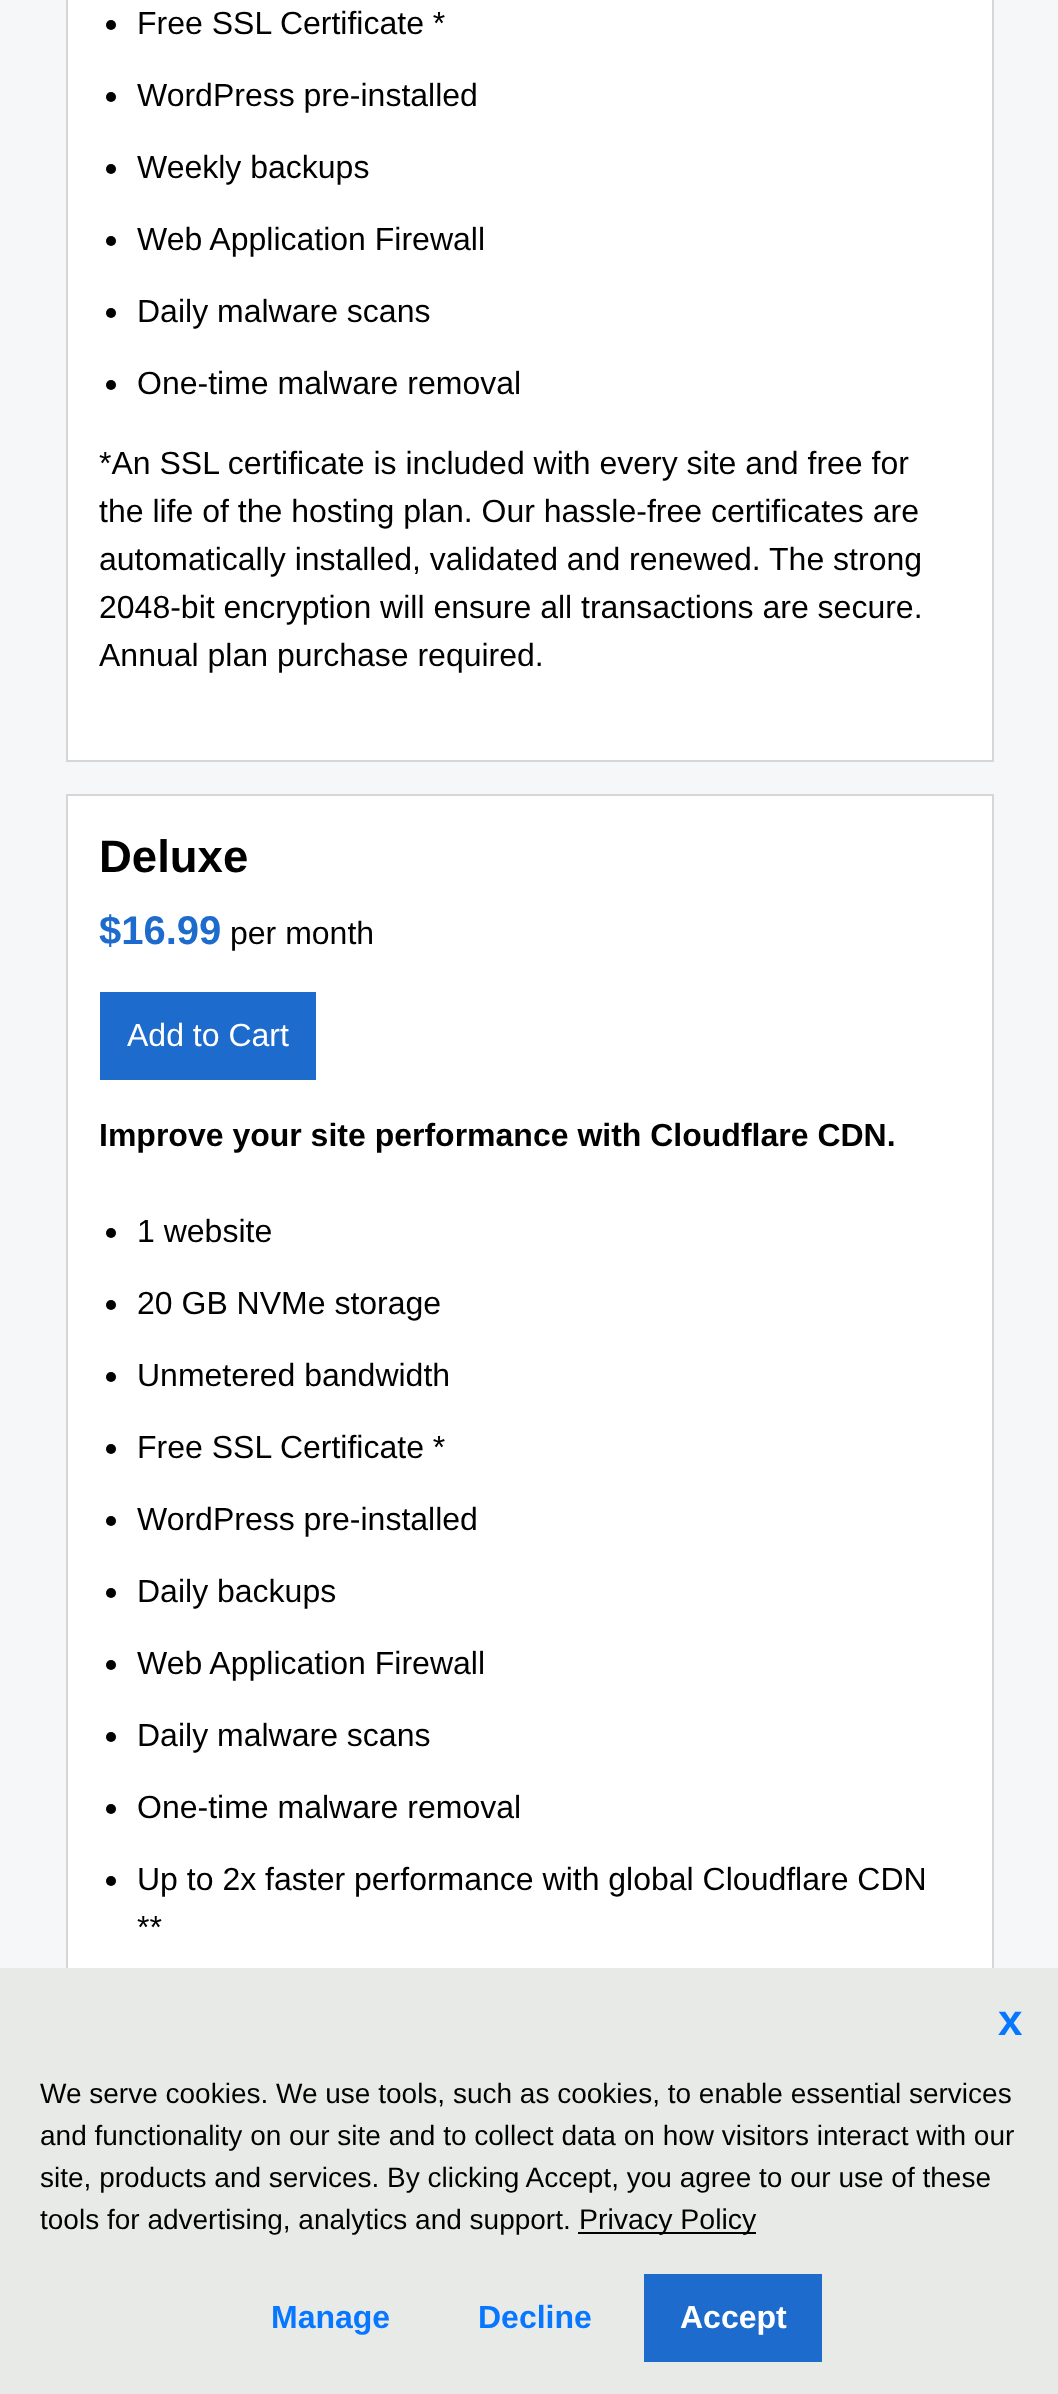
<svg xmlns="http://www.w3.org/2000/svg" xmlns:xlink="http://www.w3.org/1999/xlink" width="1058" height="2394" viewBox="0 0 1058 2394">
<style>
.cls-1{font:32px Liberation Sans;fill:#000000}
.cls-2{font:bold 45.5px Liberation Sans;fill:#000000}
.cls-3{font:bold 40px Liberation Sans;fill:#1d6ccd}
.cls-4{font:32px Liberation Sans;fill:#ffffff}
.cls-5{font:bold 32px Liberation Sans;fill:#000000}
.cls-6{font:bold 44px Liberation Sans;fill:#0877ff}
.cls-7{font:28px Liberation Sans;fill:#000000}
.cls-8{font:28.5px Liberation Sans;fill:#000000}
.cls-9{font:bold 32px Liberation Sans;fill:#0877ff}
.cls-10{font:bold 32px Liberation Sans;fill:#ffffff}
</style>
<rect width="100%" height="100%" fill="#f5f7f8"/>
<rect fill="#ffffff" stroke="#d6d6d6" stroke-width="2" x="67" y="-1" width="926" height="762"/>
<circle fill="#000000" cx="111" cy="25" r="5"/>
<circle fill="#000000" cx="111" cy="97" r="5"/>
<circle fill="#000000" cx="111" cy="169" r="5"/>
<circle fill="#000000" cx="111" cy="241" r="5"/>
<circle fill="#000000" cx="111" cy="313" r="5"/>
<circle fill="#000000" cx="111" cy="385" r="5"/>
<rect fill="#ffffff" x="68" y="796" width="924" height="1172"/>
<rect fill="none" stroke="#d6d6d6" stroke-width="2" x="67" y="795" width="926" height="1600"/>
<rect fill="#1d6ccd" x="100" y="992" width="216" height="88"/>
<circle fill="#000000" cx="111" cy="1233" r="5"/>
<circle fill="#000000" cx="111" cy="1305" r="5"/>
<circle fill="#000000" cx="111" cy="1377" r="5"/>
<circle fill="#000000" cx="111" cy="1449" r="5"/>
<circle fill="#000000" cx="111" cy="1521" r="5"/>
<circle fill="#000000" cx="111" cy="1593" r="5"/>
<circle fill="#000000" cx="111" cy="1665" r="5"/>
<circle fill="#000000" cx="111" cy="1737" r="5"/>
<circle fill="#000000" cx="111" cy="1809" r="5"/>
<circle fill="#000000" cx="111" cy="1881" r="5"/>
<rect fill="#e8eae8" x="0" y="1968" width="1058" height="426"/>
<rect fill="#000000" x="578" y="2232" width="178" height="2"/>
<rect fill="#1d6ccd" x="644" y="2274" width="178" height="88"/>
<text class="cls-1" x="137" y="34">Free SSL Certificate *</text>
<text class="cls-1" x="137" y="106">WordPress pre-installed</text>
<text class="cls-1" x="137" y="178">Weekly backups</text>
<text class="cls-1" x="137" y="250">Web Application Firewall</text>
<text class="cls-1" x="137" y="322">Daily malware scans</text>
<text class="cls-1" x="137" y="394">One-time malware removal</text>
<text class="cls-1"><tspan x="99" y="474">*An SSL certificate is included with every site and free for</tspan><tspan x="99" y="522">the life of the hosting plan. Our hassle-free certificates are</tspan><tspan x="99" y="570">automatically installed, validated and renewed. The strong</tspan><tspan x="99" y="618">2048-bit encryption will ensure all transactions are secure.</tspan><tspan x="99" y="666">Annual plan purchase required.</tspan></text>
<text class="cls-2" x="99" y="872">Deluxe</text>
<text class="cls-3" x="99" y="944">$16.99</text>
<text class="cls-1" x="230" y="944">per month</text>
<text class="cls-4" x="127" y="1046">Add to Cart</text>
<text class="cls-5" x="99" y="1146">Improve your site performance with Cloudflare CDN.</text>
<text class="cls-1" x="137" y="1242">1 website</text>
<text class="cls-1" x="137" y="1314">20 GB NVMe storage</text>
<text class="cls-1" x="137" y="1386">Unmetered bandwidth</text>
<text class="cls-1" x="137" y="1458">Free SSL Certificate *</text>
<text class="cls-1" x="137" y="1530">WordPress pre-installed</text>
<text class="cls-1" x="137" y="1602">Daily backups</text>
<text class="cls-1" x="137" y="1674">Web Application Firewall</text>
<text class="cls-1" x="137" y="1746">Daily malware scans</text>
<text class="cls-1" x="137" y="1818">One-time malware removal</text>
<text class="cls-1"><tspan x="137" y="1890">Up to 2x faster performance with global Cloudflare CDN</tspan><tspan x="137" y="1938">**</tspan></text>
<text class="cls-6" x="998" y="2035">x</text>
<text class="cls-7"><tspan x="40" y="2103">We serve cookies. We use tools, such as cookies, to enable essential services</tspan><tspan x="40" y="2145">and functionality on our site and to collect data on how visitors interact with our</tspan><tspan x="40" y="2187">site, products and services. By clicking Accept, you agree to our use of these</tspan><tspan x="40" y="2229">tools for advertising, analytics and support.</tspan></text>
<text class="cls-8" x="579" y="2229">Privacy Policy</text>
<text class="cls-9" x="271" y="2328">Manage</text>
<text class="cls-9" x="478" y="2328">Decline</text>
<text class="cls-10" x="680" y="2328">Accept</text>
</svg>
